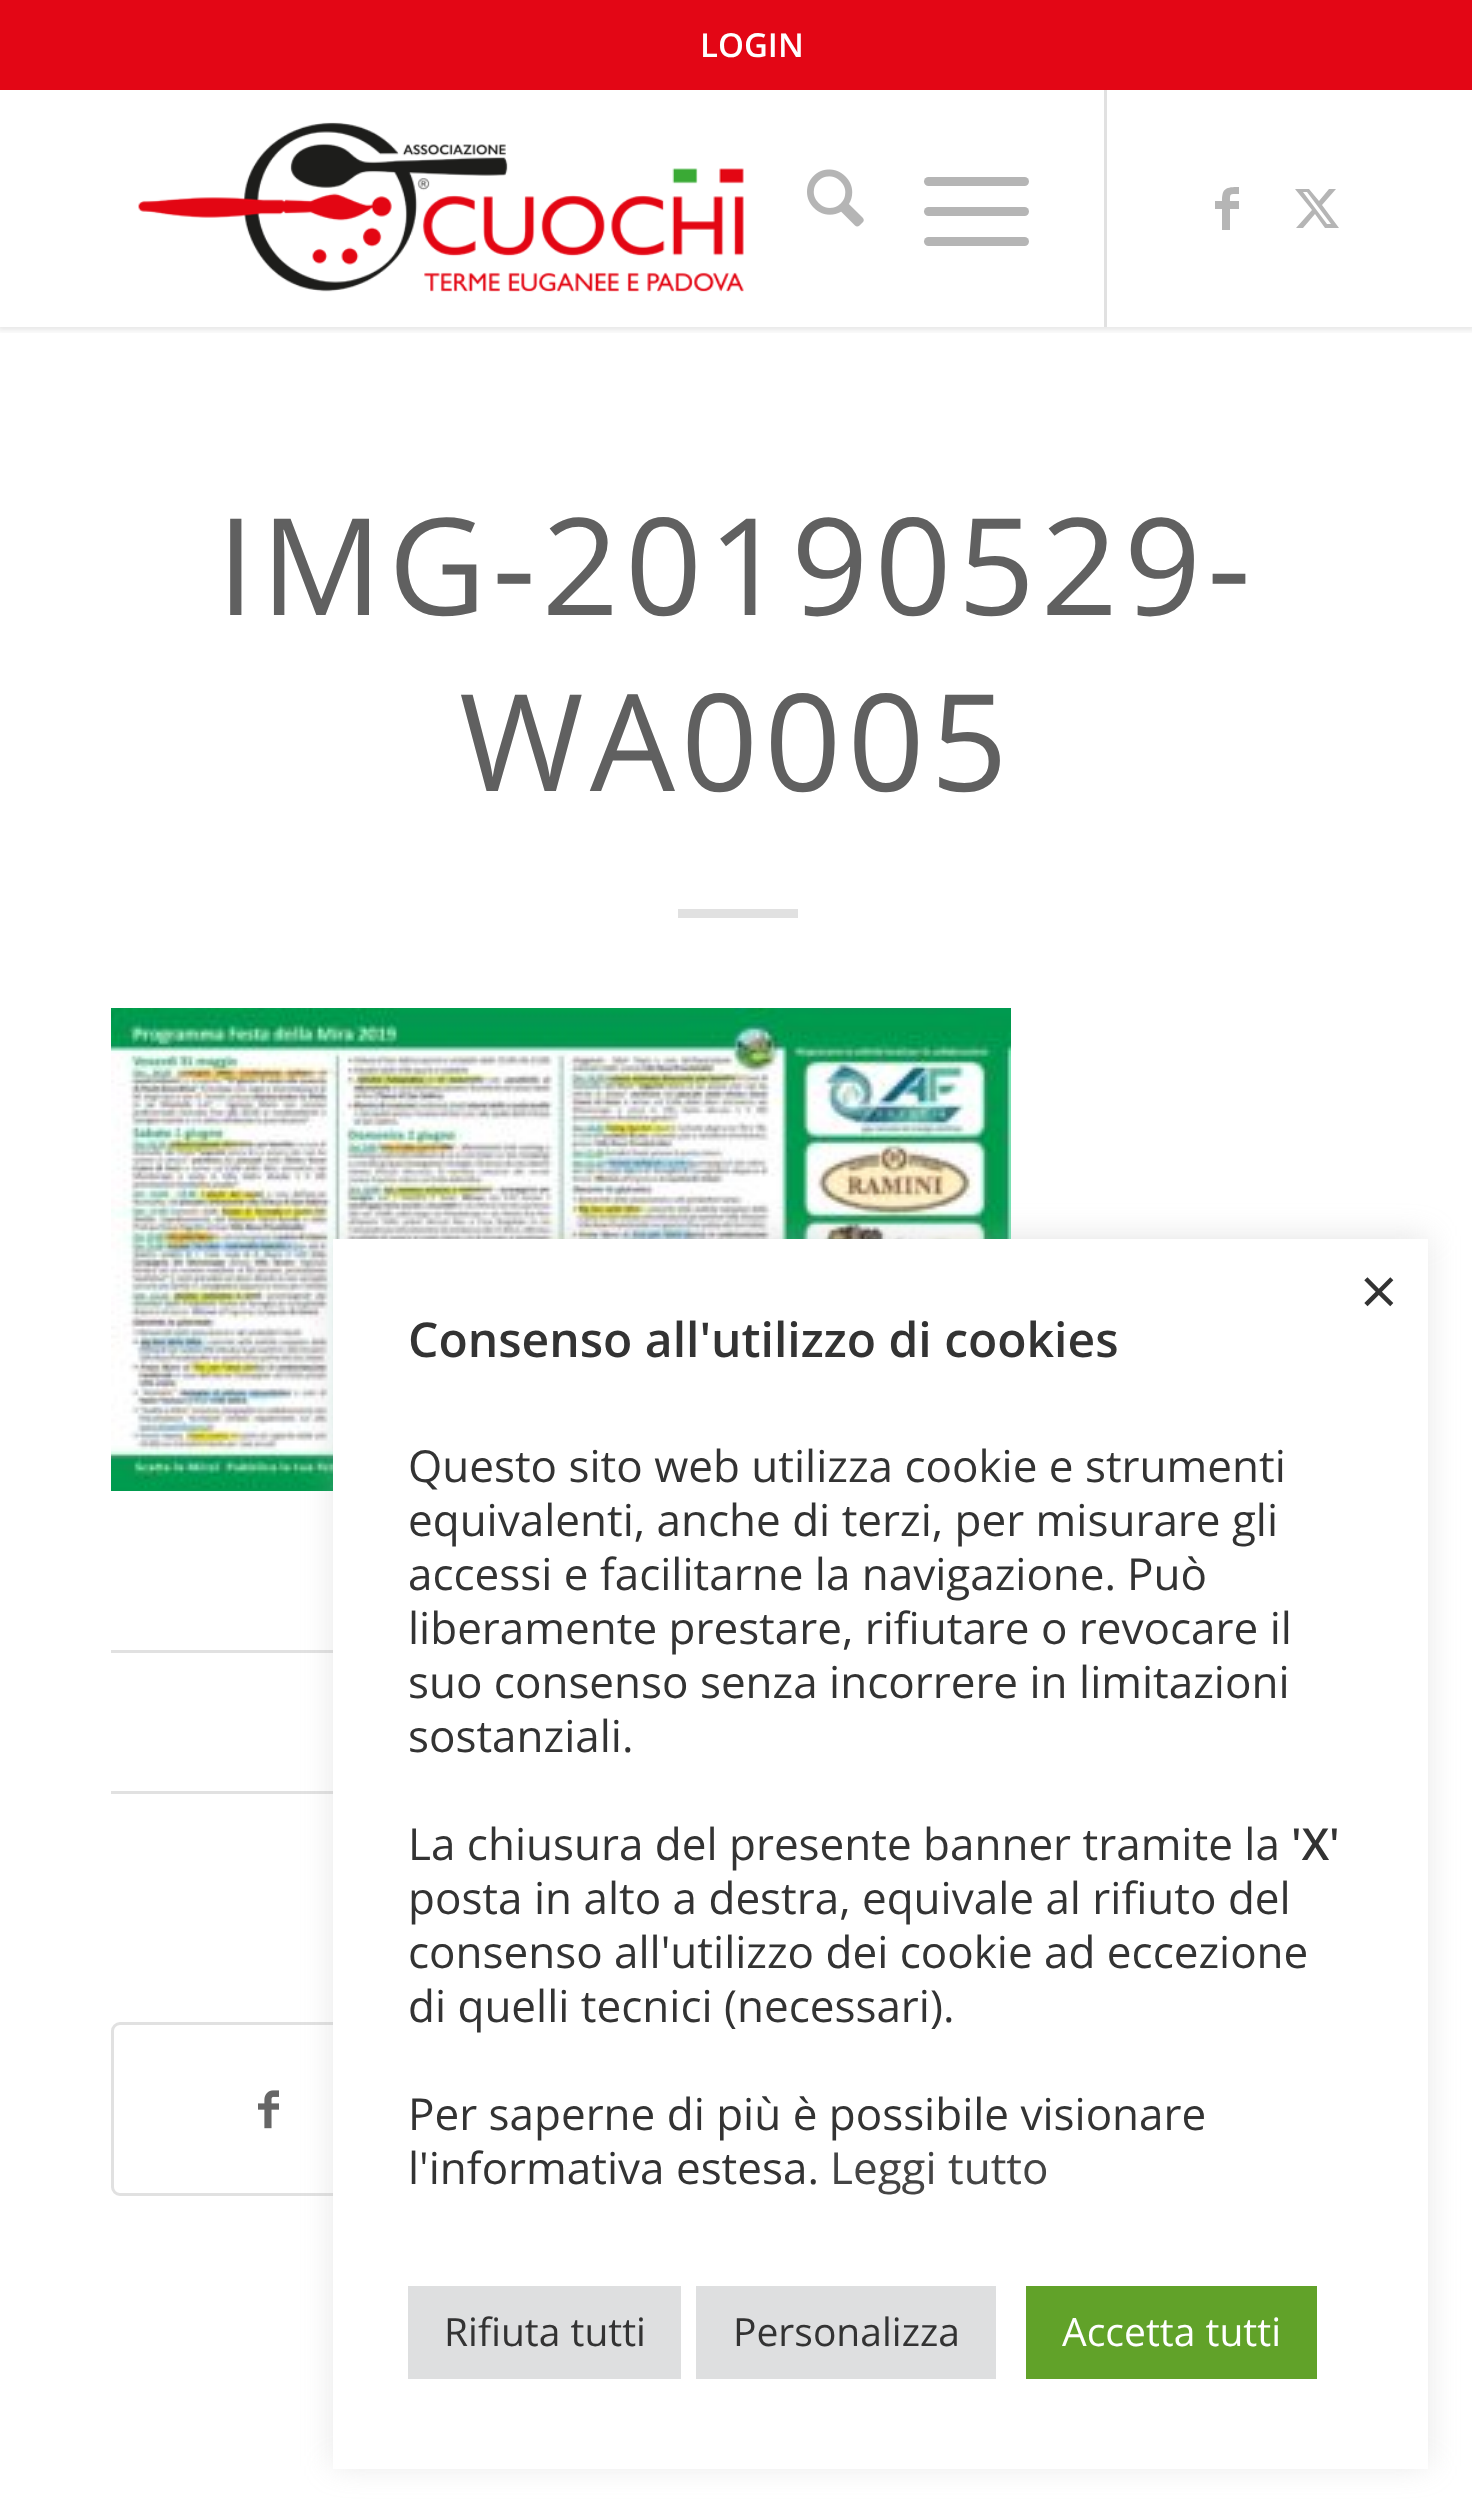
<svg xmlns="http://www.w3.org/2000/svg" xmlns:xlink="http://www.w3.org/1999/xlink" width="1472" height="2512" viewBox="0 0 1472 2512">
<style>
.cls-1{font:600 33px Open Sans;fill:#ffffff}
.cls-2{font:135px Open Sans;letter-spacing:6px;fill:#606060}
.cls-3{font:66px Open Sans;fill:#333333}
.cls-4{font:39px Open Sans;fill:#333333}
.cls-5{font:39px Open Sans;fill:#ffffff}
.cls-6{font:44px Open Sans;fill:#333333}
.cls-7{font:600 44px Open Sans;fill:#333333}
.cls-8{font:44px Open Sans;fill:#444444}
.cls-9{font:600 48px Open Sans;fill:#333333}
</style>
<defs>
<clipPath id="clip1"><rect x="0" y="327" width="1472" height="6"/></clipPath>
</defs>
<rect width="100%" height="100%" fill="#ffffff"/>
<g clip-path="url(#clip1)">
<rect fill="#000000" fill-opacity="0.1" filter="blur(3px)" x="-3" y="-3" width="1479" height="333"/>
</g>
<rect fill="#e1e1e1" x="1104" y="87" width="3" height="240"/>
<rect fill="#e30615" x="0" y="0" width="1472" height="90"/>
<image xlink:href="image0.png" x="138" y="122" width="606" height="170"/>
<image xlink:href="image1.png" x="807" y="169" width="57" height="58"/>
<rect fill="#b5b5b5" x="924" y="207" width="105" height="9" rx="4.5"/>
<rect fill="#b5b5b5" x="924" y="177" width="105" height="9" rx="4.5"/>
<rect fill="#b5b5b5" x="924" y="237" width="105" height="9" rx="4.5"/>
<path fill="#b5b5b5" d="M1239 194C1230 194 1230 193 1230 201H1239V209H1230V230H1222V209H1215V201H1222C1222 188 1226 187 1239 187Z"/>
<path fill="#b5b5b5" d="M1329 189H1336L1322 205L1339 228H1325L1315 214L1303 228H1296L1312 210L1295 189H1309L1319 201ZM1327 224H1331L1307 192H1303Z"/>
<rect fill="#e1e1e1" x="678" y="909" width="120" height="9"/>
<image xlink:href="image2.png" x="111" y="1008" width="900" height="483"/>
<rect fill="#e1e1e1" x="111" y="1650" width="222" height="3"/>
<rect fill="#e1e1e1" x="111" y="1791" width="222" height="3"/>
<rect fill="none" stroke="#e1e1e1" stroke-width="3" x="112.5" y="2023.5" width="1248" height="171" rx="7.5"/>
<image xlink:href="image3.png" x="258" y="2090" width="21" height="39"/>
<rect fill="#acabab" fill-opacity="0.3" filter="blur(15px)" x="333" y="1236" width="1095" height="1230"/>
<rect fill="#ffffff" x="333" y="1239" width="1095" height="1230"/>
<rect fill="#dedfe0" x="408" y="2286" width="273" height="93"/>
<rect fill="#dedfe0" x="696" y="2286" width="300" height="93"/>
<rect fill="#61a229" x="1026" y="2286" width="291" height="93"/>
<text class="cls-1" x="700" y="57">LOGIN</text>
<text class="cls-2" x="217" y="615">IMG-20190529-</text>
<text class="cls-2" x="459" y="791">WA0005</text>
<text class="cls-3" x="1360" y="1315">×</text>
<text class="cls-4" x="444" y="2346">Rifiuta tutti</text>
<text class="cls-4" x="733" y="2346">Personalizza</text>
<text class="cls-5" x="1062" y="2346">Accetta tutti</text>
<text class="cls-6"><tspan x="408" y="1482">Questo sito web utilizza cookie e strumenti</tspan><tspan x="408" y="1536">equivalenti, anche di terzi, per misurare gli</tspan><tspan x="408" y="1590">accessi e facilitarne la navigazione.</tspan></text>
<text class="cls-6" x="1127" y="1590">Può</text>
<text class="cls-6"><tspan x="408" y="1644">liberamente prestare, rifiutare o revocare il</tspan><tspan x="408" y="1698">suo consenso senza incorrere in limitazioni</tspan><tspan x="408" y="1752">sostanziali.</tspan></text>
<text class="cls-6" x="408" y="1860">La chiusura del presente banner tramite la</text>
<text class="cls-7" x="1291" y="1860">'X'</text>
<text class="cls-6"><tspan x="408" y="1914">posta in alto a destra, equivale al rifiuto del</tspan><tspan x="408" y="1968">consenso all'utilizzo dei cookie ad eccezione</tspan><tspan x="408" y="2022">di quelli tecnici (necessari).</tspan></text>
<text class="cls-6"><tspan x="408" y="2130">Per saperne di più è possibile visionare</tspan><tspan x="408" y="2184">l'informativa estesa.</tspan></text>
<text class="cls-8" x="830" y="2184">Leggi tutto</text>
<text class="cls-9" x="408" y="1357">Consenso all'utilizzo di cookies</text>
</svg>
